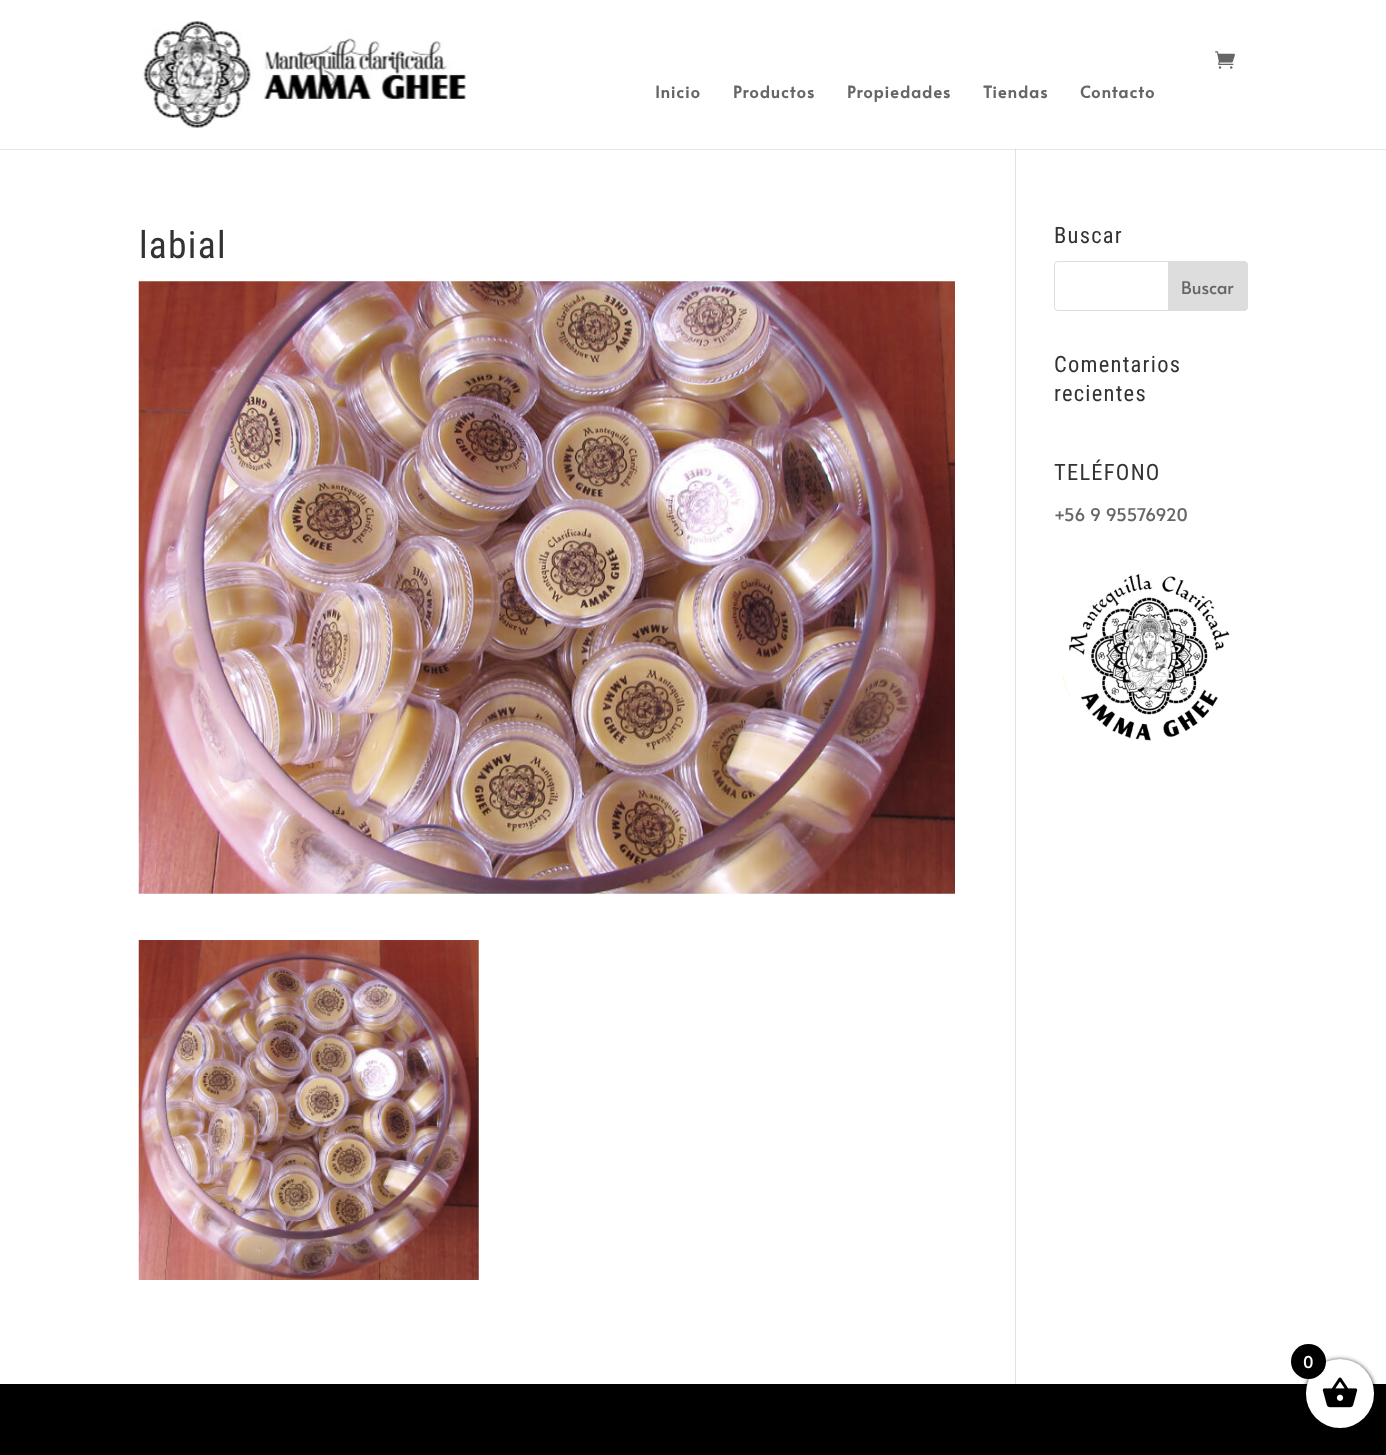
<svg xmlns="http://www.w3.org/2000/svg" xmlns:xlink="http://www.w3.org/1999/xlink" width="1386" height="1455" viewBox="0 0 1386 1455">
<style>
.cls-1{font:bold 16.25px Alata;letter-spacing:1.25px;fill:#666666}
.cls-2{font:37.5px Roboto Condensed;letter-spacing:1.25px;fill:#333333}
.cls-3{font:22.5px Roboto Condensed;letter-spacing:1.25px;fill:#333333}
.cls-4{font:17.5px Alata;fill:#666666}
.cls-5{font:16.25px Alata;fill:#ffffff}
</style>
<rect width="100%" height="100%" fill="#ffffff"/>
<rect fill="#e6e6e6" x="0" y="149" width="1386" height="1"/>
<rect fill="#e2e2e2" x="1015" y="148" width="1" height="1236"/>
<rect fill="#ffffff" x="1015" y="148" width="1" height="1"/>
<image xlink:href="image0.png" x="143" y="21" width="324" height="107"/>
<image xlink:href="image1.png" x="1215" y="51" width="20" height="18"/>
<rect fill="#cbcbcb" x="1015" y="149" width="1" height="1"/>
<image xlink:href="image2.png" x="138" y="281" width="817" height="613"/>
<image xlink:href="image3.png" x="138" y="940" width="341" height="340"/>
<rect fill="none" stroke="#dddddd" x="1054.5" y="261.5" width="193" height="49" rx="3.5"/>
<path fill="#dddddd" stroke="#dddddd" d="M1168.5 261.5H1244C1246 261.5 1247.5 263 1247.5 265V307C1247.5 309 1246 310.5 1244 310.5H1168.5Z"/>
<image xlink:href="image4.png" x="1060" y="570" width="170" height="171"/>
<rect fill="#000000" x="0" y="1384" width="1386" height="71"/>
<rect fill="#000000" filter="blur(2.5px)" x="1306" y="1360" width="68" height="69" rx="34"/>
<rect fill="#ffffff" x="1306" y="1359" width="68" height="69" rx="34"/>
<circle fill="#000000" cx="1308.5" cy="1361.5" r="17.5"/>
<image xlink:href="image5.png" x="1322" y="1377" width="36" height="31"/>
<text class="cls-1" x="655" y="98">Inicio</text>
<text class="cls-1" x="733" y="98">Productos</text>
<text class="cls-1" x="847" y="98">Propiedades</text>
<text class="cls-1" x="983" y="98">Tiendas</text>
<text class="cls-1" x="1080" y="98">Contacto</text>
<text class="cls-2" x="139" y="258">labial</text>
<text class="cls-3" x="1054" y="243">Buscar</text>
<text class="cls-4" x="1181" y="294">Buscar</text>
<text class="cls-3"><tspan x="1054" y="372">Comentarios</tspan><tspan x="1054" y="401">recientes</tspan></text>
<text class="cls-3" x="1054" y="480">TELÉFONO</text>
<text class="cls-4" x="1054" y="521">+56 9 95576920</text>
<text class="cls-5" x="1303" y="1368">0</text>
</svg>
